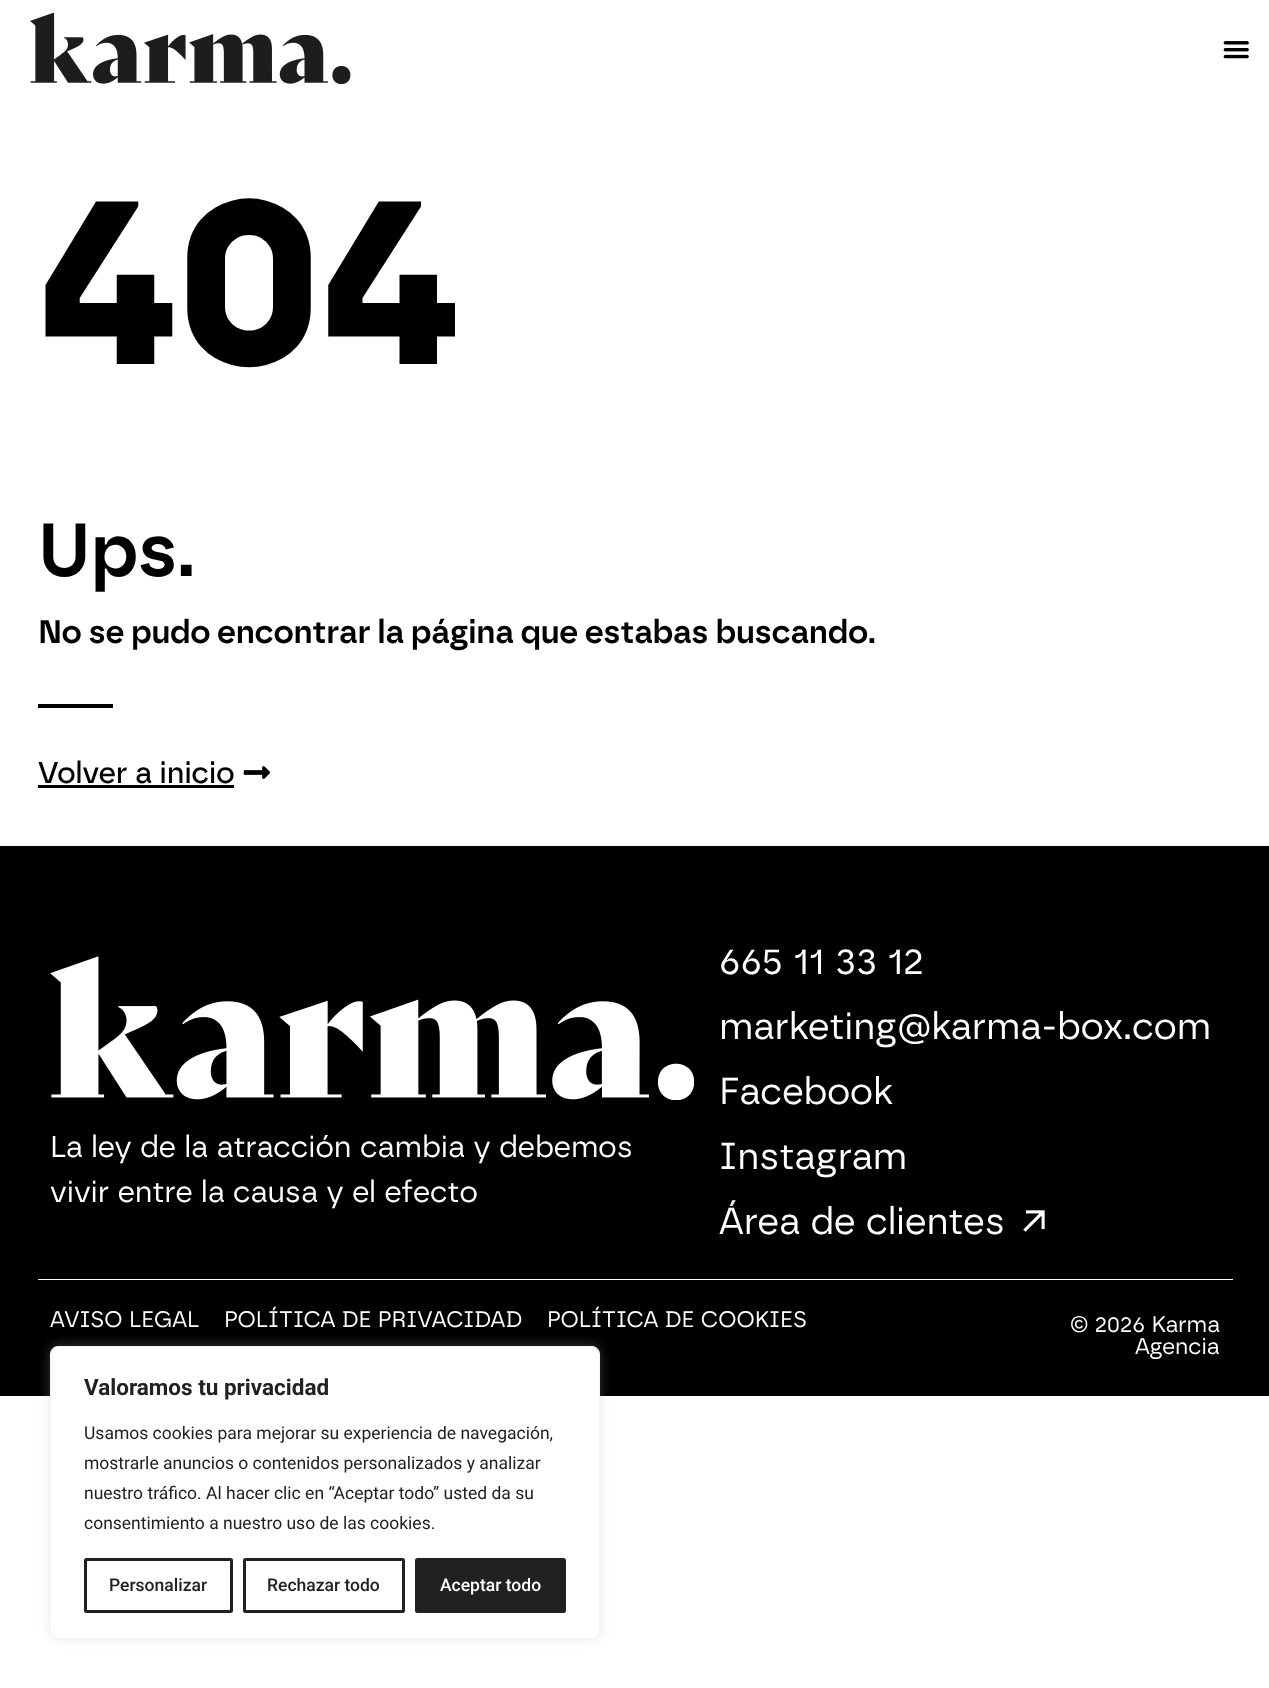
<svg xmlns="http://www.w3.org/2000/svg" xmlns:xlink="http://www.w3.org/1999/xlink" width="1269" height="1688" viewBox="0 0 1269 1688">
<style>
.cls-1{font:bold 250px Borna;fill:#000000}
.cls-2{font:600 75px Borna;fill:#000000}
.cls-3{font:600 32.5px Borna;fill:#000000}
.cls-4{font:500 30px Borna;fill:#000000}
.cls-5{font:30px Borna;fill:#ffffff}
.cls-6{font:37.5px Borna;fill:#ffffff}
.cls-7{font:22.5px Borna;fill:#ffffff}
.cls-8{font:bold 22.5px Roboto;fill:#212121}
.cls-9{font:17.5px Roboto;fill:#212121}
.cls-10{font:500 17.5px Roboto;fill:#212121}
.cls-11{font:500 17.5px Roboto;fill:#ffffff}
</style>
<rect width="100%" height="100%" fill="#ffffff"/>
<image xlink:href="image0.png" x="30" y="13" width="321" height="71"/>
<image xlink:href="image1.png" x="1223" y="41" width="26" height="18"/>
<rect fill="#000000" x="38" y="704" width="75" height="4"/>
<rect fill="#000000" x="38" y="785" width="196" height="3"/>
<image xlink:href="image2.png" x="243" y="766" width="27" height="13"/>
<rect fill="#000000" x="0" y="846" width="1269" height="550"/>
<image xlink:href="image3.png" x="50" y="956" width="644" height="144"/>
<image xlink:href="image4.png" x="1023" y="1210" width="22" height="22"/>
<rect fill="#ffffff" x="38" y="1279" width="1195" height="1"/>
<rect fill="#acabab" fill-opacity="0.3" filter="blur(6px)" x="50" y="1345" width="550" height="293" rx="8"/>
<rect fill="#ffffff" stroke="#f4f4f4" x="50.5" y="1346.5" width="549" height="292" rx="7.5"/>
<rect fill="none" stroke="#212121" stroke-width="3" x="85.5" y="1559.5" width="146" height="52" rx="1"/>
<rect fill="none" stroke="#212121" stroke-width="3" x="244.5" y="1559.5" width="159" height="52" rx="1"/>
<rect fill="#212121" stroke="#212121" stroke-width="3" x="416.5" y="1559.5" width="148" height="52" rx="1"/>
<text class="cls-1" x="38" y="364">404</text>
<text class="cls-2" x="38" y="576">Ups.</text>
<text class="cls-3" x="38" y="643">No se pudo encontrar la página que estabas buscando.</text>
<text class="cls-4" x="38" y="783">Volver a inicio</text>
<text class="cls-5"><tspan x="50" y="1157">La ley de la atracción cambia y debemos</tspan><tspan x="50" y="1202">vivir entre la causa y el efecto</tspan></text>
<text class="cls-6"><tspan x="719" y="974">665 11 33 12</tspan><tspan x="719" y="1039">marketing@karma-box.com</tspan><tspan x="719" y="1104">Facebook</tspan><tspan x="719" y="1169">Instagram</tspan><tspan x="719" y="1234">Área de clientes</tspan></text>
<text class="cls-7" x="50" y="1327">AVISO LEGAL</text>
<text class="cls-7" x="224" y="1327">POLÍTICA DE PRIVACIDAD</text>
<text class="cls-7" x="547" y="1327">POLÍTICA DE COOKIES</text>
<text class="cls-7" x="1070" y="1332">© 2026 Karma</text>
<text class="cls-7" x="1135" y="1354">Agencia</text>
<text class="cls-8" x="84" y="1395">Valoramos tu privacidad</text>
<text class="cls-9"><tspan x="84" y="1439">Usamos cookies para mejorar su experiencia de navegación,</tspan><tspan x="84" y="1469">mostrarle anuncios o contenidos personalizados y analizar</tspan><tspan x="84" y="1499">nuestro tráfico. Al hacer clic en “Aceptar todo” usted da su</tspan><tspan x="84" y="1529">consentimiento a nuestro uso de las cookies.</tspan></text>
<text class="cls-10" x="109" y="1591">Personalizar</text>
<text class="cls-10" x="267" y="1591">Rechazar todo</text>
<text class="cls-11" x="440" y="1591">Aceptar todo</text>
</svg>
